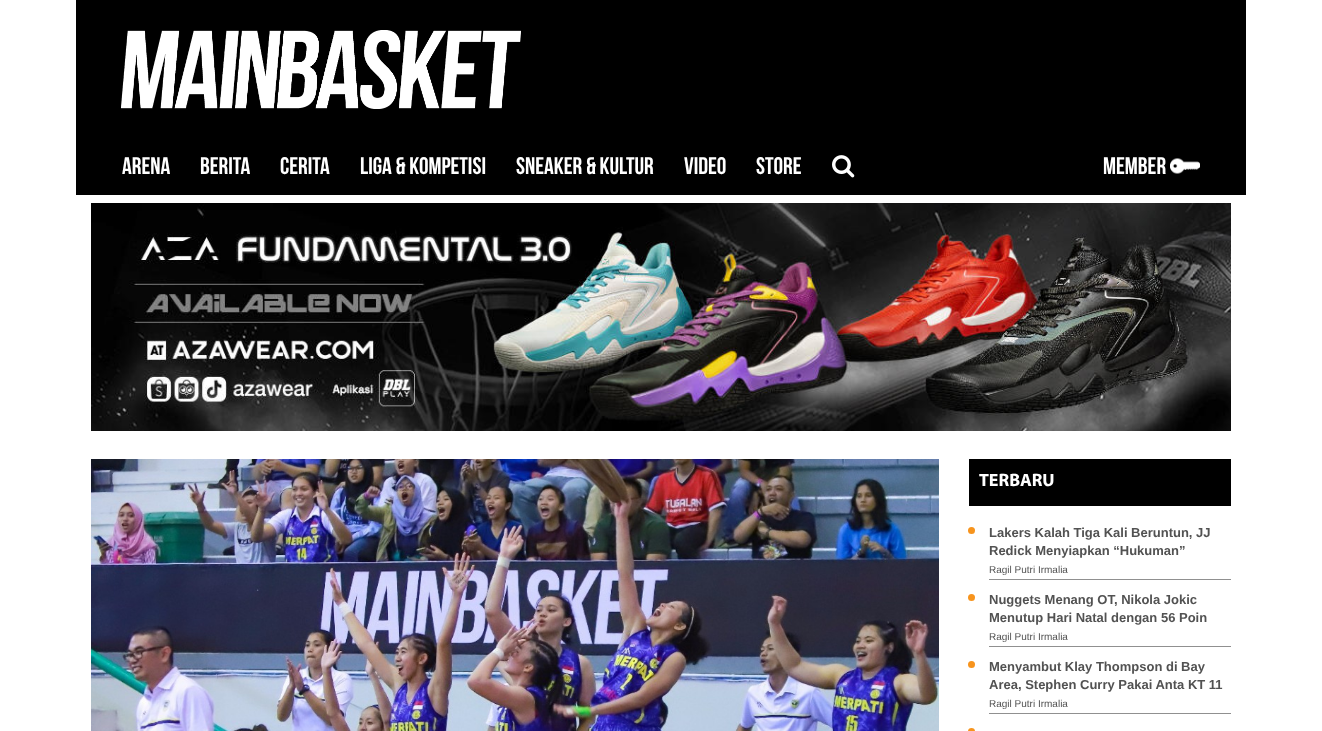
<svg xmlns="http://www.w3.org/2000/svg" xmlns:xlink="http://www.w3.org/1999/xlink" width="1322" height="731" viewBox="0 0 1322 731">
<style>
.cls-1{font:24px Bebas Neue;fill:#ffffff}
.cls-2{font:bold 18px Myriad;fill:#ffffff}
.cls-3{font:bold 13px Liberation Sans;fill:#525252}
.cls-4{font:10px Liberation Sans;fill:#525252}
</style>
<rect width="100%" height="100%" fill="#ffffff"/>
<rect fill="#000000" x="76" y="0" width="1170" height="195"/>
<image xlink:href="image0.png" x="121" y="30" width="400" height="79"/>
<image xlink:href="image1.png" x="832" y="155" width="23" height="23"/>
<image xlink:href="image2.png" x="1170" y="158" width="30" height="16"/>
<image xlink:href="image3.png" x="91" y="203" width="1140" height="228"/>
<image xlink:href="image4.png" x="91" y="459" width="848" height="272"/>
<rect fill="#000000" x="969" y="459" width="262" height="47"/>
<rect fill="#909090" x="989" y="579" width="242" height="1"/>
<circle fill="#f7941d" cx="971.5" cy="530.5" r="3.5"/>
<rect fill="#909090" x="989" y="646" width="242" height="1"/>
<circle fill="#f7941d" cx="971.5" cy="597.5" r="3.5"/>
<rect fill="#909090" x="989" y="713" width="242" height="1"/>
<circle fill="#f7941d" cx="971.5" cy="664.5" r="3.5"/>
<circle fill="#f7941d" cx="971.5" cy="731.5" r="3.5"/>
<text class="cls-1" x="122" y="174">ARENA</text>
<text class="cls-1" x="200" y="174">BERITA</text>
<text class="cls-1" x="280" y="174">CERITA</text>
<text class="cls-1" x="360" y="174">LIGA &amp; KOMPETISI</text>
<text class="cls-1" x="516" y="174">SNEAKER &amp; KULTUR</text>
<text class="cls-1" x="684" y="174">VIDEO</text>
<text class="cls-1" x="756" y="174">STORE</text>
<text class="cls-1" x="1103" y="174">MEMBER</text>
<text class="cls-2" x="979" y="486">TERBARU</text>
<text class="cls-3"><tspan x="989" y="537">Lakers Kalah Tiga Kali Beruntun, JJ</tspan><tspan x="989" y="555">Redick Menyiapkan “Hukuman”</tspan></text>
<text class="cls-4" x="989" y="573">Ragil Putri Irmalia</text>
<text class="cls-3"><tspan x="989" y="604">Nuggets Menang OT, Nikola Jokic</tspan><tspan x="989" y="622">Menutup Hari Natal dengan 56 Poin</tspan></text>
<text class="cls-4" x="989" y="640">Ragil Putri Irmalia</text>
<text class="cls-3"><tspan x="989" y="671">Menyambut Klay Thompson di Bay</tspan><tspan x="989" y="689">Area, Stephen Curry Pakai Anta KT 11</tspan></text>
<text class="cls-4" x="989" y="707">Ragil Putri Irmalia</text>
</svg>
